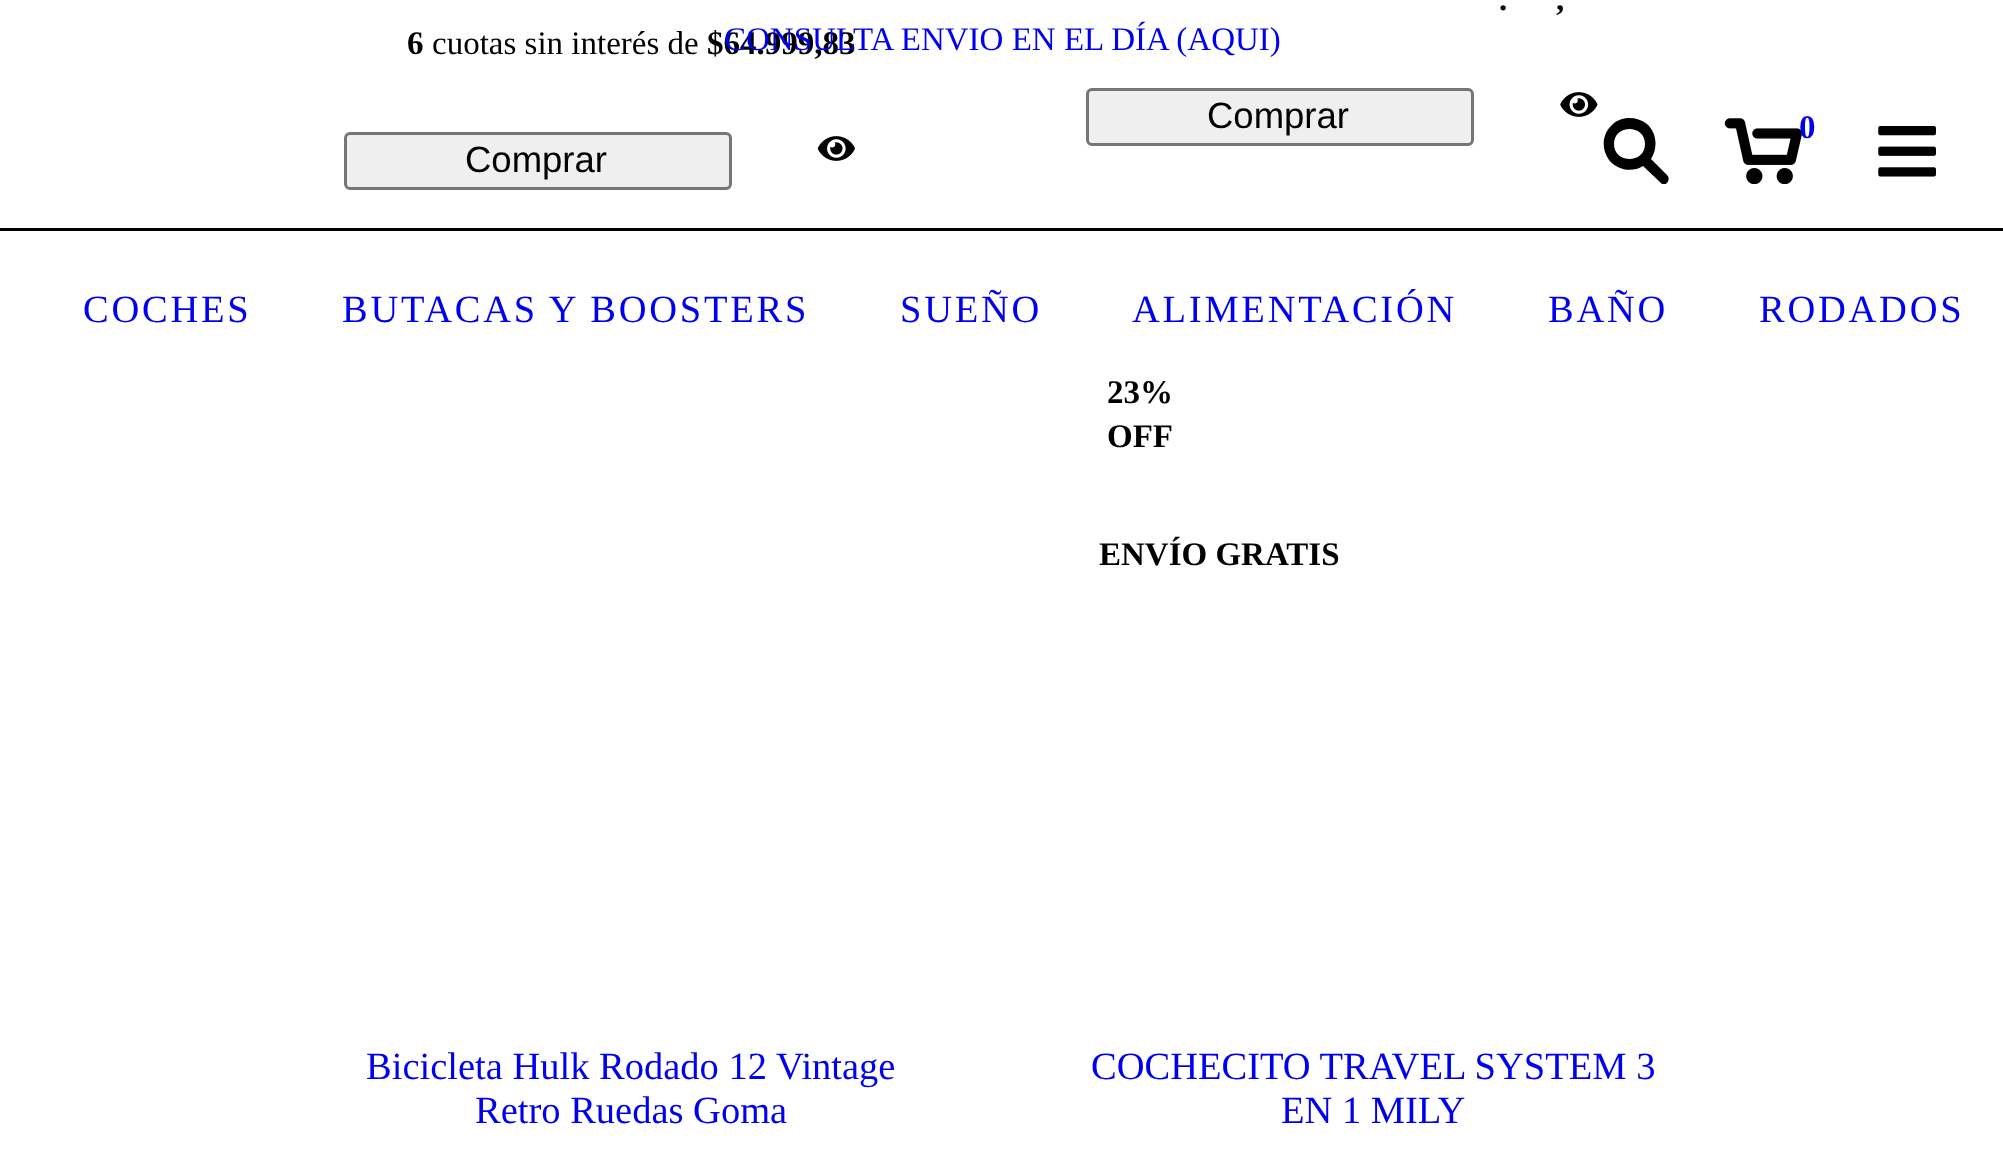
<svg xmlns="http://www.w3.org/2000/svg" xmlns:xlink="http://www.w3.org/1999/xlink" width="2003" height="1171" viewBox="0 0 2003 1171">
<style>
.cls-1{font:bold 33px Liberation Serif;fill:#000000}
.cls-2{font:33px Liberation Serif;fill:#000000}
.cls-3{font:36.5px Liberation Sans;fill:#000000}
.cls-4{font:38.5px Liberation Serif;fill:#0000ee}
.cls-5{font:33px Liberation Serif;fill:#0000ee}
.cls-6{font:bold 33px Liberation Serif;fill:#0000ee}
.cls-7{font:38.5px Liberation Serif;letter-spacing:2.75px;fill:#0000ee}
</style>
<defs>
<clipPath id="clip1"><rect x="1603" y="118" width="66" height="66"/></clipPath>
</defs>
<rect width="100%" height="100%" fill="#ffffff"/>
<rect fill="#efefef" stroke="#767676" stroke-width="3" x="345.5" y="133.5" width="385" height="55" rx="4.5"/>
<image xlink:href="image0.png" x="817" y="136" width="38" height="25"/>
<rect fill="#efefef" stroke="#767676" stroke-width="3" x="1087.5" y="89.5" width="385" height="55" rx="4.5"/>
<image xlink:href="image1.png" x="1560" y="92" width="38" height="25"/>
<g clip-path="url(#clip1)">
<path fill="#000000" d="M1667 175L1651 159C1658 148 1657 133 1647 124C1636 116 1621 116 1612 125C1602 134 1601 149 1609 160C1617 170 1632 173 1643 166L1662 184C1667 186 1671 179 1667 175ZM1614 144C1614 124 1645 124 1645 144C1645 164 1614 164 1614 144Z"/>
</g>
<image xlink:href="image2.png" x="1724" y="118" width="78" height="66"/>
<image xlink:href="image3.png" x="1878" y="126" width="58" height="51"/>
<rect fill="#000000" x="0" y="228" width="2003" height="3"/>
<text class="cls-1" x="407" y="54">6</text>
<text class="cls-2" x="432" y="54">cuotas sin interés de</text>
<text class="cls-1" x="707" y="54">$64.999,83</text>
<text class="cls-3" x="465" y="172">Comprar</text>
<text class="cls-1" x="1499" y="10">.</text>
<text class="cls-1" x="1556" y="10">,</text>
<text class="cls-3" x="1207" y="128">Comprar</text>
<text class="cls-4" x="366" y="1079">Bicicleta Hulk Rodado 12 Vintage</text>
<text class="cls-4" x="475" y="1123">Retro Ruedas Goma</text>
<text class="cls-1"><tspan x="1107" y="403">23%</tspan><tspan x="1107" y="447">OFF</tspan></text>
<text class="cls-1" x="1099" y="565">ENVÍO GRATIS</text>
<text class="cls-4" x="1091" y="1079">COCHECITO TRAVEL SYSTEM 3</text>
<text class="cls-4" x="1281" y="1123">EN 1 MILY</text>
<text class="cls-5" x="724" y="50">CONSULTA ENVIO EN EL DÍA (AQUI)</text>
<text class="cls-6" x="1799" y="138">0</text>
<text class="cls-7" x="83" y="322">COCHES</text>
<text class="cls-7" x="342" y="322">BUTACAS Y BOOSTERS</text>
<text class="cls-7" x="900" y="322">SUEÑO</text>
<text class="cls-7" x="1132" y="322">ALIMENTACIÓN</text>
<text class="cls-7" x="1548" y="322">BAÑO</text>
<text class="cls-7" x="1759" y="322">RODADOS</text>
</svg>
